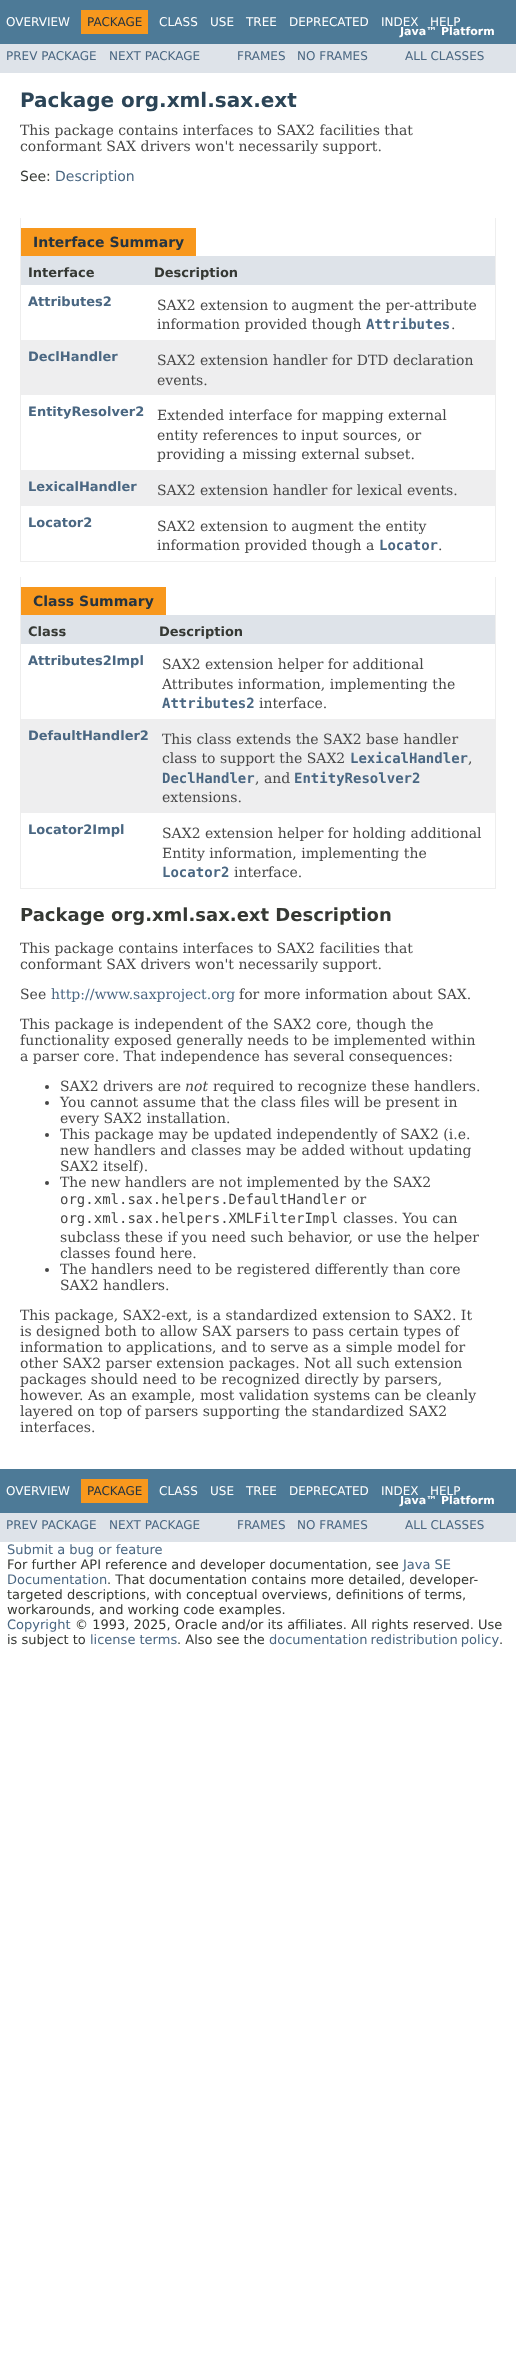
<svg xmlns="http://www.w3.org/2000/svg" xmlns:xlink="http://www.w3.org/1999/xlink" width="516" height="2368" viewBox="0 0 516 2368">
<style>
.cls-1{font:12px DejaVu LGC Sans;fill:#ffffff}
.cls-2{font:12px DejaVu LGC Sans;fill:#253441}
.cls-3{font:bold 11px DejaVu LGC Sans;fill:#ffffff}
.cls-4{font:12px DejaVu LGC Sans;fill:#4a6782}
.cls-5{font:bold 20px DejaVu LGC Sans;fill:#2c4557}
.cls-6{font:14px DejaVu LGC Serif;fill:#474747}
.cls-7{font:14px DejaVu LGC Sans;fill:#353833}
.cls-8{font:14px DejaVu LGC Sans;fill:#4a6782}
.cls-9{font:bold 14px DejaVu LGC Sans;fill:#253441}
.cls-10{font:bold 13px DejaVu LGC Sans;fill:#353833}
.cls-11{font:bold 13px DejaVu LGC Sans;fill:#4a6782}
.cls-12{font:bold 14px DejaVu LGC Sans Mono;fill:#4a6782}
.cls-13{font:bold 18px DejaVu LGC Sans;fill:#353833}
.cls-14{font:14px DejaVu LGC Serif;fill:#4a6782}
.cls-15{font:italic 14px DejaVu LGC Serif;fill:#474747}
.cls-16{font:14px DejaVu LGC Sans Mono;fill:#474747}
.cls-17{font:13px DejaVu LGC Sans;fill:#4a6782}
.cls-18{font:13px DejaVu LGC Sans;fill:#353833}
</style>
<rect width="100%" height="100%" fill="#ffffff"/>
<rect fill="#4d7a97" x="0" y="0" width="516" height="44"/>
<rect fill="#f8981d" x="81" y="10" width="67" height="24"/>
<rect fill="#dee3e9" x="0" y="44" width="516" height="29"/>
<rect fill="#eeeeee" x="495" y="218" width="1" height="344"/>
<rect fill="#eeeeee" x="20" y="561" width="476" height="1"/>
<rect fill="#eeeeee" x="20" y="218" width="1" height="344"/>
<rect fill="#f8981d" x="21" y="228" width="175" height="28"/>
<rect fill="#dee3e9" x="21" y="256" width="474" height="29"/>
<rect fill="#eeeeef" x="21" y="340" width="474" height="55"/>
<rect fill="#eeeeef" x="21" y="470" width="474" height="36"/>
<rect fill="#eeeeee" x="495" y="577" width="1" height="312"/>
<rect fill="#eeeeee" x="20" y="888" width="476" height="1"/>
<rect fill="#eeeeee" x="20" y="577" width="1" height="312"/>
<rect fill="#f8981d" x="21" y="587" width="145" height="28"/>
<rect fill="#dee3e9" x="21" y="615" width="474" height="29"/>
<rect fill="#eeeeef" x="21" y="719" width="474" height="94"/>
<circle fill="#474747" cx="47" cy="1087" r="2"/>
<circle fill="#474747" cx="47" cy="1103" r="2"/>
<circle fill="#474747" cx="47" cy="1135" r="2"/>
<circle fill="#474747" cx="47" cy="1183" r="2"/>
<circle fill="#474747" cx="47" cy="1270" r="2"/>
<rect fill="#4d7a97" x="0" y="1469" width="516" height="44"/>
<rect fill="#f8981d" x="81" y="1479" width="67" height="24"/>
<rect fill="#dee3e9" x="0" y="1513" width="516" height="29"/>
<text class="cls-1" x="6" y="26">OVERVIEW</text>
<text class="cls-2" x="87" y="26">PACKAGE</text>
<text class="cls-1" x="159" y="26">CLASS</text>
<text class="cls-1" x="210" y="26">USE</text>
<text class="cls-1" x="246" y="26">TREE</text>
<text class="cls-1" x="289" y="26">DEPRECATED</text>
<text class="cls-1" x="381" y="26">INDEX</text>
<text class="cls-1" x="430" y="26">HELP</text>
<text class="cls-3" x="400" y="35">Java™ Platform</text>
<text class="cls-4" x="6" y="60">PREV PACKAGE</text>
<text class="cls-4" x="109" y="60">NEXT PACKAGE</text>
<text class="cls-4" x="237" y="60">FRAMES</text>
<text class="cls-4" x="297" y="60">NO FRAMES</text>
<text class="cls-4" x="405" y="60">ALL CLASSES</text>
<text class="cls-5" x="20" y="107">Package org.xml.sax.ext</text>
<text class="cls-6"><tspan x="20" y="135">This package contains interfaces to SAX2 facilities that</tspan><tspan x="20" y="151">conformant SAX drivers won't necessarily support.</tspan></text>
<text class="cls-7" x="20" y="181">See:</text>
<text class="cls-8" x="55" y="181">Description</text>
<text class="cls-9" x="33" y="247">Interface Summary</text>
<text class="cls-10" x="28" y="277">Interface</text>
<text class="cls-10" x="154" y="277">Description</text>
<text class="cls-11" x="28" y="306">Attributes2</text>
<text class="cls-6"><tspan x="157" y="310">SAX2 extension to augment the per-attribute</tspan><tspan x="157" y="329">information provided though</tspan></text>
<text class="cls-12" x="366" y="329">Attributes</text>
<text class="cls-6" x="451" y="329">.</text>
<text class="cls-11" x="28" y="361">DeclHandler</text>
<text class="cls-6"><tspan x="157" y="365">SAX2 extension handler for DTD declaration</tspan><tspan x="157" y="385">events.</tspan></text>
<text class="cls-11" x="28" y="416">EntityResolver2</text>
<text class="cls-6"><tspan x="157" y="420">Extended interface for mapping external</tspan><tspan x="157" y="440">entity references to input sources, or</tspan><tspan x="157" y="459">providing a missing external subset.</tspan></text>
<text class="cls-11" x="28" y="491">LexicalHandler</text>
<text class="cls-6" x="157" y="495">SAX2 extension handler for lexical events.</text>
<text class="cls-11" x="28" y="527">Locator2</text>
<text class="cls-6"><tspan x="157" y="531">SAX2 extension to augment the entity</tspan><tspan x="157" y="550">information provided though a</tspan></text>
<text class="cls-12" x="379" y="550">Locator</text>
<text class="cls-6" x="438" y="550">.</text>
<text class="cls-9" x="33" y="606">Class Summary</text>
<text class="cls-10" x="28" y="636">Class</text>
<text class="cls-10" x="159" y="636">Description</text>
<text class="cls-11" x="28" y="665">Attributes2Impl</text>
<text class="cls-6"><tspan x="162" y="669">SAX2 extension helper for additional</tspan><tspan x="162" y="689">Attributes information, implementing the</tspan></text>
<text class="cls-12" x="162" y="708">Attributes2</text>
<text class="cls-6" x="259" y="708">interface.</text>
<text class="cls-11" x="28" y="740">DefaultHandler2</text>
<text class="cls-6"><tspan x="162" y="744">This class extends the SAX2 base handler</tspan><tspan x="162" y="763">class to support the SAX2</tspan></text>
<text class="cls-12" x="350" y="763">LexicalHandler</text>
<text class="cls-6" x="468" y="763">,</text>
<text class="cls-12" x="162" y="783">DeclHandler</text>
<text class="cls-6" x="255" y="783">, and</text>
<text class="cls-12" x="294" y="783">EntityResolver2</text>
<text class="cls-6" x="162" y="802">extensions.</text>
<text class="cls-11" x="28" y="834">Locator2Impl</text>
<text class="cls-6"><tspan x="162" y="838">SAX2 extension helper for holding additional</tspan><tspan x="162" y="858">Entity information, implementing the</tspan></text>
<text class="cls-12" x="162" y="877">Locator2</text>
<text class="cls-6" x="234" y="877">interface.</text>
<text class="cls-13" x="20" y="921">Package org.xml.sax.ext Description</text>
<text class="cls-6"><tspan x="20" y="953">This package contains interfaces to SAX2 facilities that</tspan><tspan x="20" y="969">conformant SAX drivers won't necessarily support.</tspan></text>
<text class="cls-6" x="20" y="999">See</text>
<text class="cls-14" x="51" y="999">http://www.saxproject.org</text>
<text class="cls-6" x="239" y="999">for more information about SAX.</text>
<text class="cls-6"><tspan x="20" y="1029">This package is independent of the SAX2 core, though the</tspan><tspan x="20" y="1045">functionality exposed generally needs to be implemented within</tspan><tspan x="20" y="1061">a parser core. That independence has several consequences:</tspan></text>
<text class="cls-6" x="60" y="1091">SAX2 drivers are</text>
<text class="cls-15" x="185" y="1091">not</text>
<text class="cls-6" x="213" y="1091">required to recognize these handlers.</text>
<text class="cls-6"><tspan x="60" y="1107">You cannot assume that the class files will be present in</tspan><tspan x="60" y="1123">every SAX2 installation.</tspan><tspan x="60" y="1139">This package may be updated independently of SAX2 (i.e.</tspan><tspan x="60" y="1155">new handlers and classes may be added without updating</tspan><tspan x="60" y="1171">SAX2 itself).</tspan><tspan x="60" y="1187">The new handlers are not implemented by the SAX2</tspan></text>
<text class="cls-16" x="60" y="1204">org.xml.sax.helpers.DefaultHandler</text>
<text class="cls-6" x="351" y="1204">or</text>
<text class="cls-16" x="60" y="1223">org.xml.sax.helpers.XMLFilterImpl</text>
<text class="cls-6" x="343" y="1223">classes. You can</text>
<text class="cls-6"><tspan x="60" y="1242">subclass these if you need such behavior, or use the helper</tspan><tspan x="60" y="1258">classes found here.</tspan><tspan x="60" y="1274">The handlers need to be registered differently than core</tspan><tspan x="60" y="1290">SAX2 handlers.</tspan></text>
<text class="cls-6"><tspan x="20" y="1320">This package, SAX2-ext, is a standardized extension to SAX2. It</tspan><tspan x="20" y="1336">is designed both to allow SAX parsers to pass certain types of</tspan><tspan x="20" y="1352">information to applications, and to serve as a simple model for</tspan><tspan x="20" y="1368">other SAX2 parser extension packages. Not all such extension</tspan><tspan x="20" y="1384">packages should need to be recognized directly by parsers,</tspan><tspan x="20" y="1400">however. As an example, most validation systems can be cleanly</tspan><tspan x="20" y="1416">layered on top of parsers supporting the standardized SAX2</tspan><tspan x="20" y="1432">interfaces.</tspan></text>
<text class="cls-1" x="6" y="1495">OVERVIEW</text>
<text class="cls-2" x="87" y="1495">PACKAGE</text>
<text class="cls-1" x="159" y="1495">CLASS</text>
<text class="cls-1" x="210" y="1495">USE</text>
<text class="cls-1" x="246" y="1495">TREE</text>
<text class="cls-1" x="289" y="1495">DEPRECATED</text>
<text class="cls-1" x="381" y="1495">INDEX</text>
<text class="cls-1" x="430" y="1495">HELP</text>
<text class="cls-3" x="400" y="1504">Java™ Platform</text>
<text class="cls-4" x="6" y="1529">PREV PACKAGE</text>
<text class="cls-4" x="109" y="1529">NEXT PACKAGE</text>
<text class="cls-4" x="237" y="1529">FRAMES</text>
<text class="cls-4" x="297" y="1529">NO FRAMES</text>
<text class="cls-4" x="405" y="1529">ALL CLASSES</text>
<text class="cls-17" x="7" y="1554">Submit a bug or feature</text>
<text class="cls-18" x="7" y="1569">For further API reference and developer documentation, see</text>
<text class="cls-17" x="403" y="1569">Java SE</text>
<text class="cls-17" x="7" y="1584">Documentation</text>
<text class="cls-18" x="107" y="1584">. That documentation contains more detailed, developer-</text>
<text class="cls-18"><tspan x="7" y="1599">targeted descriptions, with conceptual overviews, definitions of terms,</tspan><tspan x="7" y="1614">workarounds, and working code examples.</tspan></text>
<text class="cls-17" x="7" y="1629">Copyright</text>
<text class="cls-18" x="75" y="1629">© 1993, 2025, Oracle and/or its affiliates. All rights reserved. Use</text>
<text class="cls-18" x="7" y="1644">is subject to</text>
<text class="cls-17" x="90" y="1644">license terms</text>
<text class="cls-18" x="177" y="1644">. Also see the</text>
<text class="cls-17" x="269" y="1644" word-spacing="-1">documentation redistribution policy</text>
<text class="cls-18" x="499" y="1644">.</text>
</svg>
